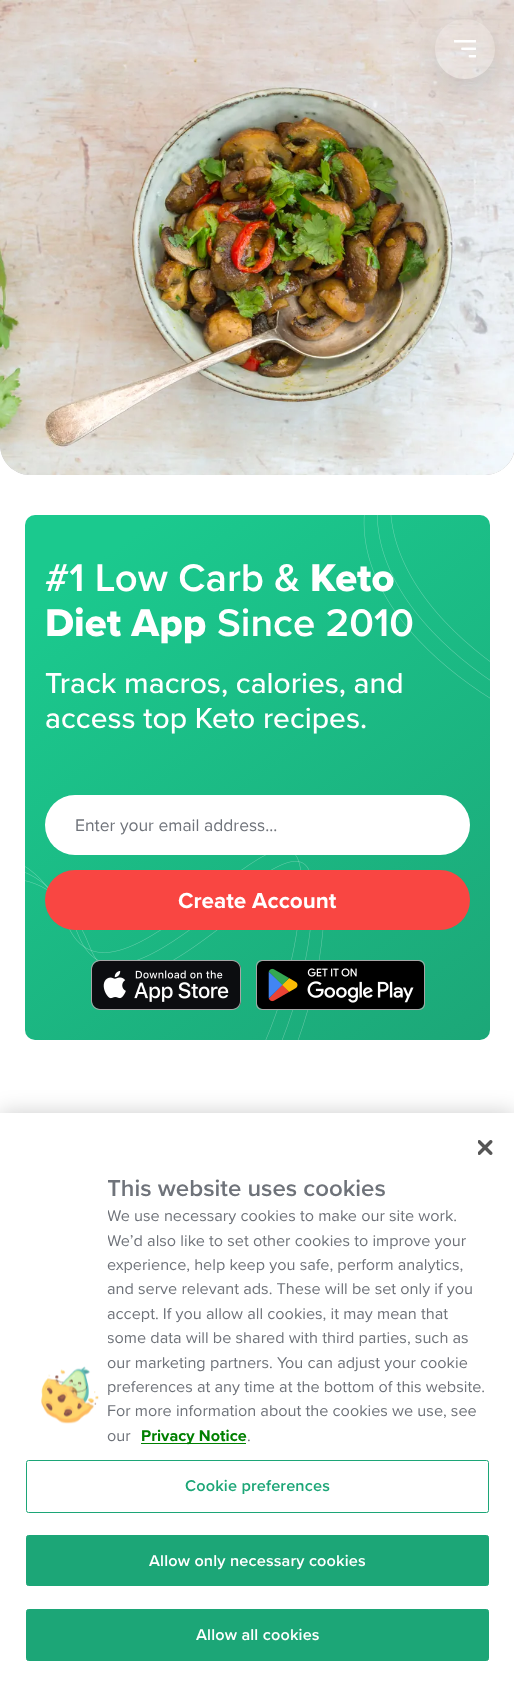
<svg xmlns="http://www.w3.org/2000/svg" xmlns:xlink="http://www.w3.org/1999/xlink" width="514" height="1683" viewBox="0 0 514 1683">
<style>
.cls-1{font:600 40px Proxima Nova;fill:#ffffff}
.cls-2{font:800 40px Proxima Nova;fill:#ffffff}
.cls-3{font:500 30px Proxima Nova;fill:#ffffff}
.cls-4{font:17.5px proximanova;fill:#6f737a}
.cls-5{font:bold 22.5px proximanova;fill:#ffffff}
.cls-6{font:600 24px Proxima Nova;fill:#6f737a}
.cls-7{font:16.25px proximanova;fill:#6f737a}
.cls-8{font:bold 16.25px proximanova;fill:#008000}
.cls-9{font:600 16.25px Proxima Nova;letter-spacing:0.15px;fill:#1ca677}
.cls-10{font:600 16.25px Proxima Nova;letter-spacing:0.15px;fill:#ffffff}
</style>
<defs>
<clipPath id="clip1"><path d="M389 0H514V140H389ZM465 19C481.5 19 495 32.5 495 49C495 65.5 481.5 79 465 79C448.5 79 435 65.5 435 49C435 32.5 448.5 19 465 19Z" clip-rule="evenodd"/></clipPath>
<linearGradient id="g1" gradientUnits="userSpaceOnUse" x1="53" y1="495" x2="475" y2="1077"><stop offset="0.11" stop-color="#1bc98e"/><stop offset="1" stop-color="#1ca677"/></linearGradient>
<clipPath id="clip2"><rect x="108" y="1173" width="381" height="275"/></clipPath>
</defs>
<rect width="100%" height="100%" fill="#ffffff"/>
<path fill="#cdcdcd" d="M0 0H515V445C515 461.5 501.5 475 485 475H30C13.5 475 0 461.5 0 445Z"/>
<image xlink:href="image1.png" x="0" y="0" width="514" height="475"/>
<g clip-path="url(#clip1)">
<rect fill="#111520" fill-opacity="0.12" filter="blur(15px)" x="435" y="34" width="60" height="60" rx="30"/>
</g>
<circle fill="#ffffff" fill-opacity="0.15" cx="465" cy="49" r="30"/>
<image xlink:href="image0.png" x="454" y="40" width="22" height="18"/>
<rect fill="url(#g1)" x="25" y="515" width="465" height="525" rx="10"/>
<rect fill="#ffffff" x="45" y="795" width="425" height="60" rx="30"/>
<image xlink:href="image5.png" x="25" y="855" width="299" height="185"/>
<rect fill="#f94642" x="45" y="870" width="425" height="60" rx="30"/>
<image xlink:href="image3.png" x="91" y="960" width="150" height="50"/>
<image xlink:href="image4.png" x="256" y="960" width="169" height="50"/>
<rect fill="#000000" fill-opacity="0.2" filter="blur(11px)" x="0" y="1113" width="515" height="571"/>
<rect fill="#ffffff" x="0" y="1113" width="514" height="570"/>
<image xlink:href="image6.png" x="478" y="1140" width="15" height="15"/>
<image xlink:href="image7.png" x="41" y="1366" width="58" height="58"/>
<rect fill="#008000" x="141" y="1443" width="105" height="1"/>
<rect fill="none" stroke="#1ca677" x="26.5" y="1460.5" width="462" height="52" rx="2"/>
<rect fill="#1ca677" stroke="#1ca677" x="26.5" y="1535.5" width="462" height="50" rx="2"/>
<rect fill="#1ca677" stroke="#1ca677" x="26.5" y="1609.5" width="462" height="51" rx="2"/>
<text class="cls-1" x="45" y="591">#1 Low Carb &amp;</text>
<text class="cls-2" x="310" y="591">Keto</text>
<text class="cls-2" x="45" y="636">Diet App</text>
<text class="cls-1" x="217" y="636">Since 2010</text>
<text class="cls-3"><tspan x="45" y="693">Track macros, calories, and</tspan><tspan x="45" y="728">access top Keto recipes.</tspan></text>
<image xlink:href="image2.png" x="363" y="515" width="127" height="184"/>
<text class="cls-4" x="75" y="831">Enter your email address...</text>
<text class="cls-5" x="178" y="908">Create Account</text>
<g clip-path="url(#clip2)">
<text class="cls-6" x="107" y="1196">This website uses cookies</text>
<text class="cls-7"><tspan x="107" y="1221">We use necessary cookies to make our site work.</tspan><tspan x="107" y="1246">We’d also like to set other cookies to improve your</tspan></text>
</g>
<text class="cls-7"><tspan x="107" y="1270">experience, help keep you safe, perform analytics,</tspan><tspan x="107" y="1294">and serve relevant ads. These will be set only if you</tspan><tspan x="107" y="1319">accept. If you allow all cookies, it may mean that</tspan></text>
<g clip-path="url(#clip2)">
<text class="cls-7" x="107" y="1343">some data will be shared with third parties, such as</text>
</g>
<text class="cls-7"><tspan x="107" y="1368">our marketing partners. You can adjust your cookie</tspan><tspan x="107" y="1392">preferences at any time at the bottom of this website.</tspan><tspan x="107" y="1416">For more information about the cookies we use, see</tspan><tspan x="107" y="1441">our</tspan></text>
<text class="cls-8" x="141" y="1441">Privacy Notice</text>
<text class="cls-7" x="247" y="1441">.</text>
<text class="cls-9" x="185" y="1491">Cookie preferences</text>
<text class="cls-10" x="149" y="1566">Allow only necessary cookies</text>
<text class="cls-10" x="196" y="1640">Allow all cookies</text>
</svg>
